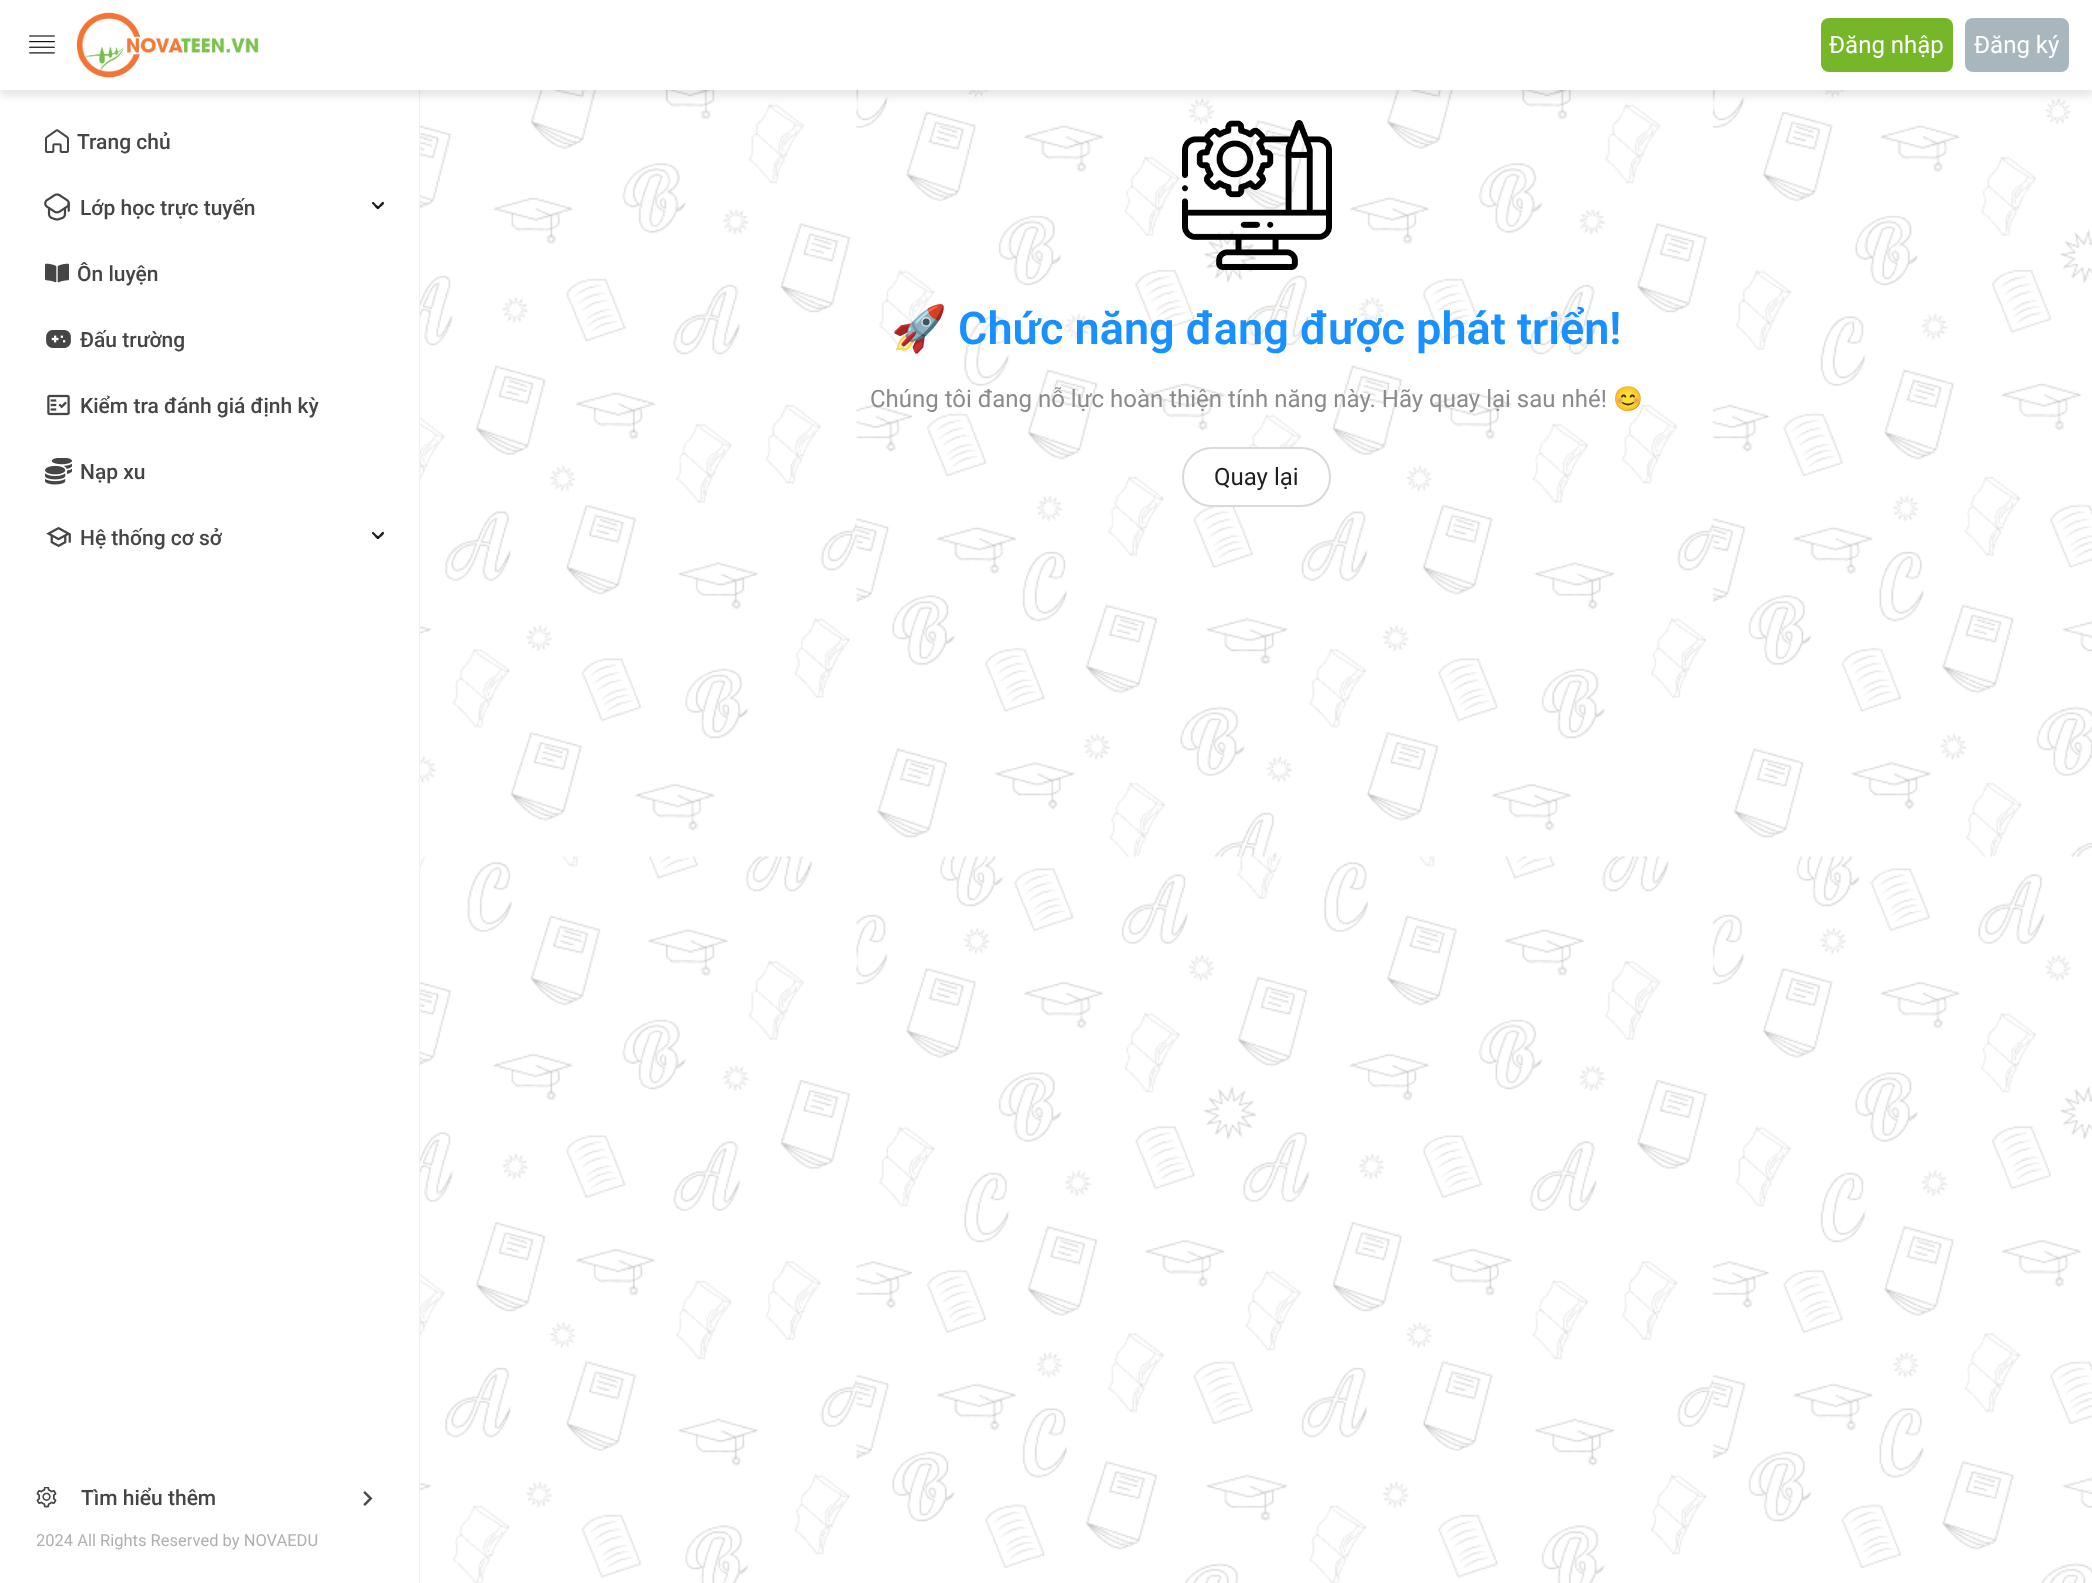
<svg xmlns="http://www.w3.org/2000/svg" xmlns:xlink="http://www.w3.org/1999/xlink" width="2092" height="1583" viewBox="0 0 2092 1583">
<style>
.cls-1{font:24px Roboto;fill:#ffffff}
.cls-2{font:500 21px Roboto;fill:#454545}
.cls-3{font:16.5px Roboto;fill:#b0b0b0}
.cls-4{font:45px Noto Color Emoji;fill:#1890ff}
.cls-5{font:600 45px Roboto;fill:#1890ff}
.cls-6{font:24px Roboto;fill:#8b8b8b}
.cls-7{font:24px Noto Color Emoji;fill:#8b8b8b}
.cls-8{font:24px Roboto;fill:#1f1f1f}
</style>
<defs>
<clipPath id="clip1"><rect x="80" y="309" width="309" height="60"/></clipPath>
</defs>
<rect width="100%" height="100%" fill="#ffffff"/>
<image xlink:href="image0.png" x="420" y="90" width="1672" height="1493"/>
<rect fill="#f0f0f0" x="419" y="90" width="1" height="1493"/>
<rect fill="#000000" fill-opacity="0.1" filter="blur(4.5px)" x="0" y="6" width="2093" height="90"/>
<rect fill="#ffffff" x="0" y="0" width="2092" height="90"/>
<image xlink:href="image1.png" x="29" y="35" width="26" height="19"/>
<image xlink:href="image2.png" x="76" y="12" width="183" height="66"/>
<rect fill="#76b72a" x="1821" y="18" width="132" height="54" rx="8"/>
<rect fill="#a8b7be" x="1965" y="18" width="104" height="54" rx="8"/>
<image xlink:href="image3.png" x="45" y="129" width="24" height="24"/>
<image xlink:href="image4.png" x="44" y="193" width="26" height="28"/>
<path fill="#1f1f1f" d="M377.5 207L380 204.5C380.5 204 382.5 201 383.5 202C385.5 203.5 381.5 206.5 380.5 207L378.5 209C377.5 209.5 376.5 208 377.5 207Z"/>
<path fill="#000000" fill-opacity="0.88" d="M374 202.5L376 204.5C377 205.5 379.5 207 378.5 208.5C377.5 210.5 374.5 206 374 205.5L372 203.5C371.5 202.5 373 201.5 374 202.5Z"/>
<image xlink:href="image5.png" x="45" y="263" width="24" height="20"/>
<image xlink:href="image6.png" x="46" y="330" width="25" height="18"/>
<image xlink:href="image7.png" x="47" y="394" width="23" height="22"/>
<image xlink:href="image8.png" x="45" y="458" width="27" height="27"/>
<image xlink:href="image9.png" x="46" y="526" width="25" height="22"/>
<path fill="#1f1f1f" d="M377.5 537L380 534.5C380.5 534 382.5 531 383.5 532C385.5 533.5 381.5 536.5 380.5 537L378.5 539C377.5 539.5 376.5 538 377.5 537Z"/>
<path fill="#000000" fill-opacity="0.88" d="M374 532.5L376 534.5C377 535.5 379.5 537 378.5 538.5C377.5 540.5 374.5 536 374 535.5L372 533.5C371.5 532.5 373 531.5 374 532.5Z"/>
<image xlink:href="image10.png" x="36" y="1487" width="21" height="21"/>
<image xlink:href="image11.png" x="363" y="1491" width="10" height="15"/>
<image xlink:href="image12.png" x="1182" y="120" width="150" height="150"/>
<rect fill="#ffffff" stroke="#d9d9d9" stroke-width="2" x="1183" y="448" width="147" height="58" rx="29"/>
<text class="cls-1" x="1829" y="53">Đăng nhập</text>
<text class="cls-1" x="1974" y="53">Đăng ký</text>
<text class="cls-2" x="77" y="149">Trang chủ</text>
<text class="cls-2" x="80" y="215">Lớp học trực tuyến</text>
<text class="cls-2" x="77" y="281">Ôn luyện</text>
<g clip-path="url(#clip1)">
<text class="cls-2" x="80" y="347">Đấu trường</text>
</g>
<text class="cls-2" x="80" y="413">Kiểm tra đánh giá định kỳ</text>
<text class="cls-2" x="80" y="479">Nạp xu</text>
<text class="cls-2" x="80" y="545">Hệ thống cơ sở</text>
<text class="cls-2" x="81" y="1505">Tìm hiểu thêm</text>
<text class="cls-3" x="36" y="1546">2024 All Rights Reserved by NOVAEDU</text>
<text class="cls-4" x="891" y="344">🚀</text>
<text class="cls-5" x="958" y="344">Chức năng đang được phát triển!</text>
<text class="cls-6" x="870" y="407">Chúng tôi đang nỗ lực hoàn thiện tính năng này. Hãy quay lại sau nhé!</text>
<text class="cls-7" x="1613" y="407">😊</text>
<text class="cls-8" x="1214" y="485">Quay lại</text>
</svg>
